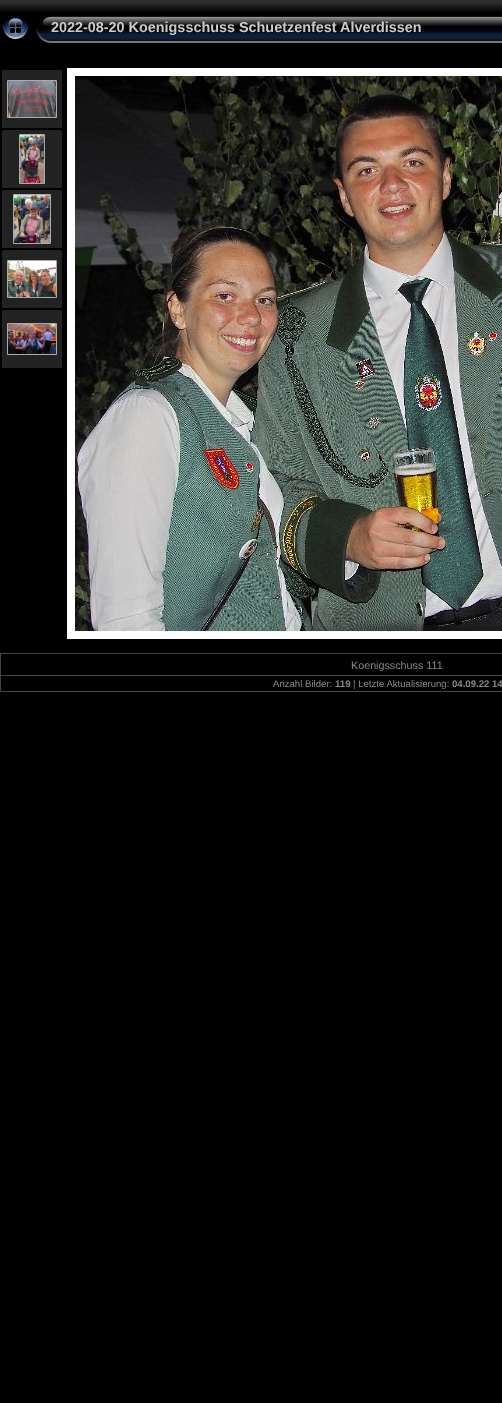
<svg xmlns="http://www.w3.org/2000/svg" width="502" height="1403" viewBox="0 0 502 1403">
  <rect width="100%" height="100%" fill="#000"/>
  <image x="0" y="0" width="502" height="12" href="img/1.png"/>
  <image x="3" y="16" width="25" height="23" href="img/2.png"/>
  <image x="36" y="16" width="15" height="27" href="img/3.png"/>
  <image x="51" y="16" width="451" height="27" href="img/4.png"/>
  <path d="M2 70h60v58H2z" fill="#222"/>
  <path d="M7.5 80.5h49v37H7.5z" fill="none" stroke="#aaa"/>
  <image x="8" y="81" width="48" height="36" href="img/5.png"/>
  <path d="M2 130h60v58H2z" fill="#222"/>
  <path d="M19.5 134.5h25v49H19.5z" fill="none" stroke="#aaa"/>
  <image x="20" y="135" width="24" height="48" href="img/6.png"/>
  <path d="M2 190h60v58H2z" fill="#222"/>
  <path d="M13.5 194.5h37v49H13.5z" fill="none" stroke="#aaa"/>
  <image x="14" y="195" width="36" height="48" href="img/7.png"/>
  <path d="M2 250h60v58H2z" fill="#222"/>
  <path d="M7.5 260.5h49v37H7.5z" fill="none" stroke="#aaa"/>
  <image x="8" y="261" width="48" height="36" href="img/8.png"/>
  <path d="M2 310h60v58H2z" fill="#222"/>
  <path d="M7.5 323.5h49v31H7.5z" fill="none" stroke="#aaa"/>
  <image x="8" y="324" width="48" height="30" href="img/9.png"/>
  <path d="M71 72h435v563H71z" fill="none" stroke="#fff" stroke-width="8"/>
  <image x="75" y="76" width="427" height="555" href="img/10.png"/>
  <path d="M0 653h502v1H0z" fill="#444"/>
  <path d="M0 691h502v1H0z" fill="#444"/>
  <path d="M0 653h1v39H0z" fill="#444"/>
  <path d="M0 675h502v1H0z" fill="#444"/>
  <text x="51" y="32" font-family="Liberation Sans" font-size="14.4" font-weight="bold" fill="#ccc">2022-08-20 Koenigsschuss Schuetzenfest Alverdissen</text>
  <text x="351" y="669" font-family="Liberation Sans" font-size="10.75" fill="#888">Koenigsschuss 111</text>
  <text x="273" y="687" font-family="Liberation Sans" font-size="9.6" fill="#888">Anzahl Bilder:</text>
  <text x="335" y="687" font-family="Liberation Sans" font-size="9.6" font-weight="bold" fill="#888">119</text>
  <text x="353" y="687" font-family="Liberation Sans" font-size="9.6" fill="#888">| Letzte Aktualisierung:</text>
  <text x="452" y="687" font-family="Liberation Sans" font-size="9.6" font-weight="bold" fill="#888">04.09.22 14</text>
</svg>
